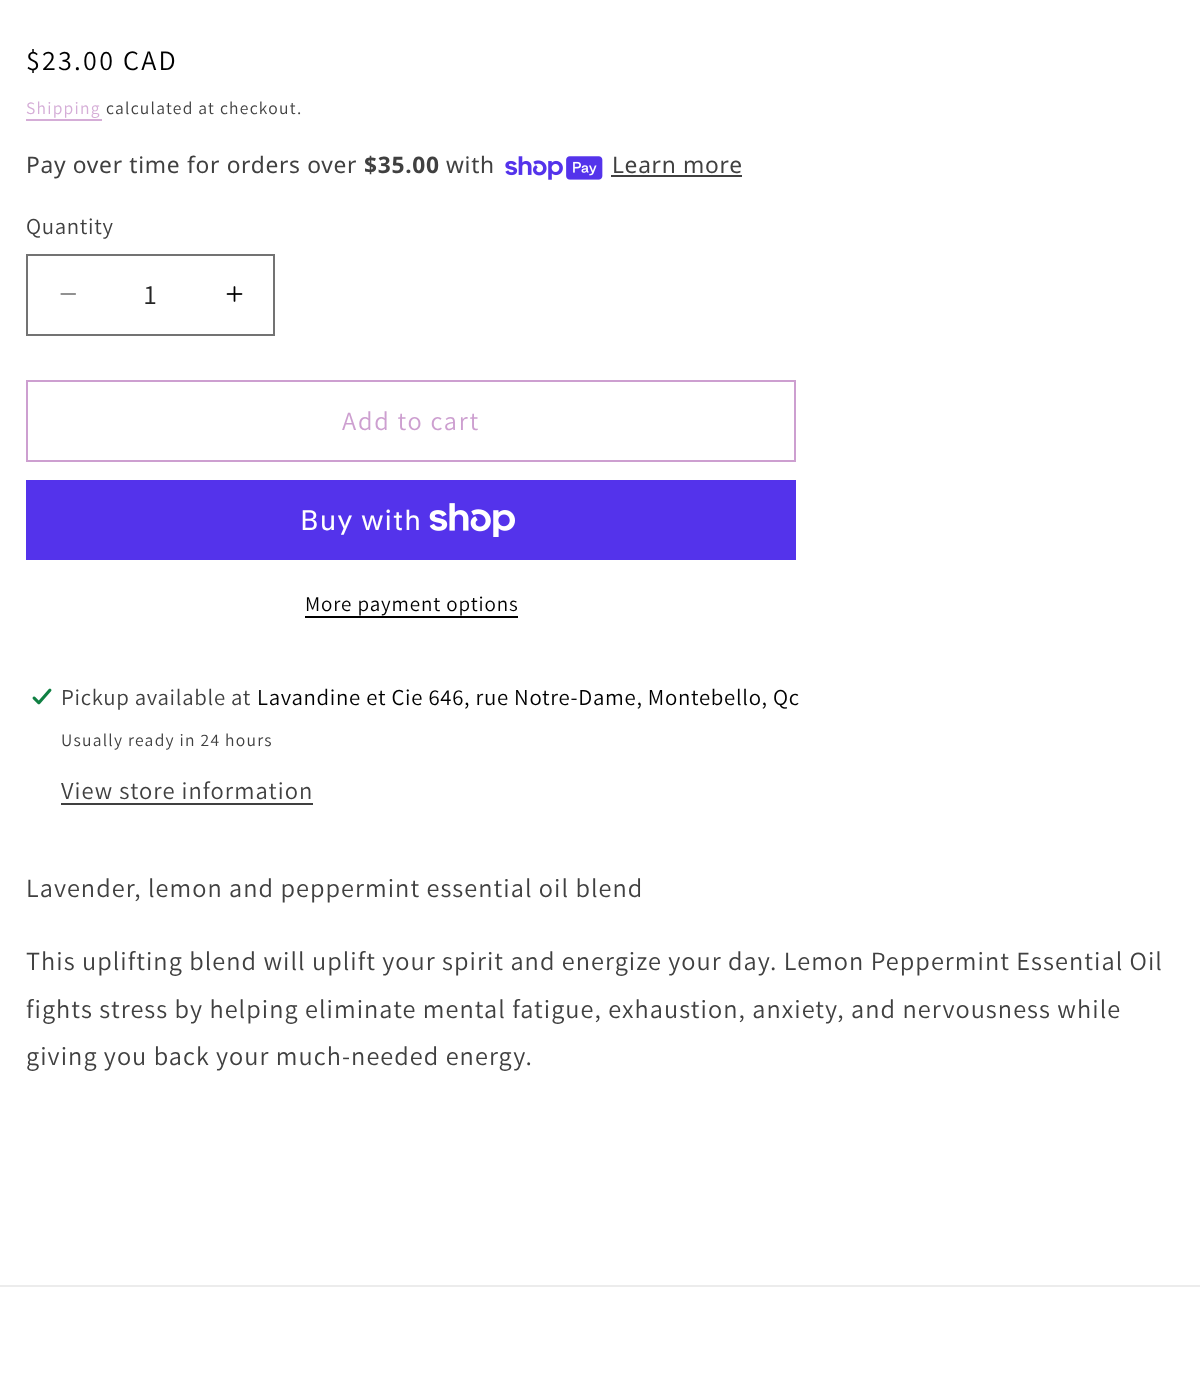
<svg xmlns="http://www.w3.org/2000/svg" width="1200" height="1385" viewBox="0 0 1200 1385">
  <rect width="100%" height="100%" fill="#fff"/>
  <path d="M26 119h76v2H26z" fill="#d5add7"/>
  <image x="505" y="156" width="98" height="24" href="img/1.png"/>
  <path d="M611 175h131v2H611z" fill="#404040"/>
  <image x="60" y="293" width="16" height="2" href="img/2.png"/>
  <image x="226" y="286" width="17" height="16" href="img/3.png"/>
  <path d="M27 255h247v80H27z" fill="none" stroke="#737373" stroke-width="2"/>
  <path d="M27 381h768v80H27z" fill="none" stroke="#cd9fd0" stroke-width="2"/>
  <path d="M26 480h770v80H26z" fill="#5433eb"/>
  <image x="429" y="503" width="86" height="34" href="img/4.png"/>
  <path d="M305 616h213v2H305z" fill="#000"/>
  <image x="32" y="688" width="20" height="17" href="img/5.png"/>
  <path d="M61 803h252v2H61z" fill="#404040"/>
  <path d="M0 1285h1200v2H0z" fill="#ececec"/>
  <text x="26" y="70" font-family="Assistant" font-size="28" letter-spacing="2.25" fill="#000">$23.00 CAD</text>
  <text x="26" y="114" font-family="Assistant" font-size="17.5" letter-spacing="1.25" fill="#d5add7">Shipping</text>
  <text x="106" y="114" font-family="Assistant" font-size="17.5" letter-spacing="1.25" fill="#404040">calculated at checkout.</text>
  <text x="26" y="173" font-family="Noto Sans" font-size="22.75" letter-spacing="0.7" fill="#404040">Pay over time for orders over</text>
  <text x="364" y="173" font-family="Noto Sans" font-size="22.75" font-weight="bold" letter-spacing="0.7" fill="#404040">$35.00</text>
  <g font-family="Noto Sans" font-size="22.75" letter-spacing="0.7" fill="#404040">
    <text x="446" y="173">with</text>
    <text x="612" y="173">Learn more</text>
  </g>
  <text x="26" y="234" font-family="Assistant" font-size="22.75" letter-spacing="0.7" fill="#404040">Quantity</text>
  <text x="144" y="304" font-family="Assistant" font-size="28" fill="#262626">1</text>
  <text x="342" y="430" font-family="Assistant" font-size="26.25" letter-spacing="1.75" fill="#cd9fd0">Add to cart</text>
  <text x="300" y="530" font-family="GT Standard" font-size="28" letter-spacing="1.05" fill="#fff">Buy with</text>
  <text x="305" y="611" font-family="Assistant" font-size="21" letter-spacing="0.9" fill="#000">More payment options</text>
  <text x="61" y="705" font-family="Assistant" font-size="22.75" letter-spacing="0.7" fill="#404040">Pickup available at</text>
  <text x="257" y="705" font-family="Assistant" font-size="22.75" letter-spacing="0.7" fill="#000">Lavandine et Cie 646, rue Notre-Dame, Montebello, Qc</text>
  <text x="61" y="746" font-family="Assistant" font-size="17.5" letter-spacing="1.25" fill="#404040">Usually ready in 24 hours</text>
  <text x="61" y="799" font-family="Assistant" font-size="24.5" letter-spacing="1.05" fill="#404040">View store information</text>
  <g font-family="Assistant" font-size="26.25" letter-spacing="1.05" fill="#404040">
    <text x="26" y="897">Lavender, lemon and peppermint essential oil blend</text>
    <text x="26" y="970">This uplifting blend will uplift your spirit and energize your day. Lemon Peppermint Essential Oil</text>
    <text x="26" y="1018">fights stress by helping eliminate mental fatigue, exhaustion, anxiety, and nervousness while</text>
    <text x="26" y="1065">giving you back your much-needed energy.</text>
  </g>
</svg>
